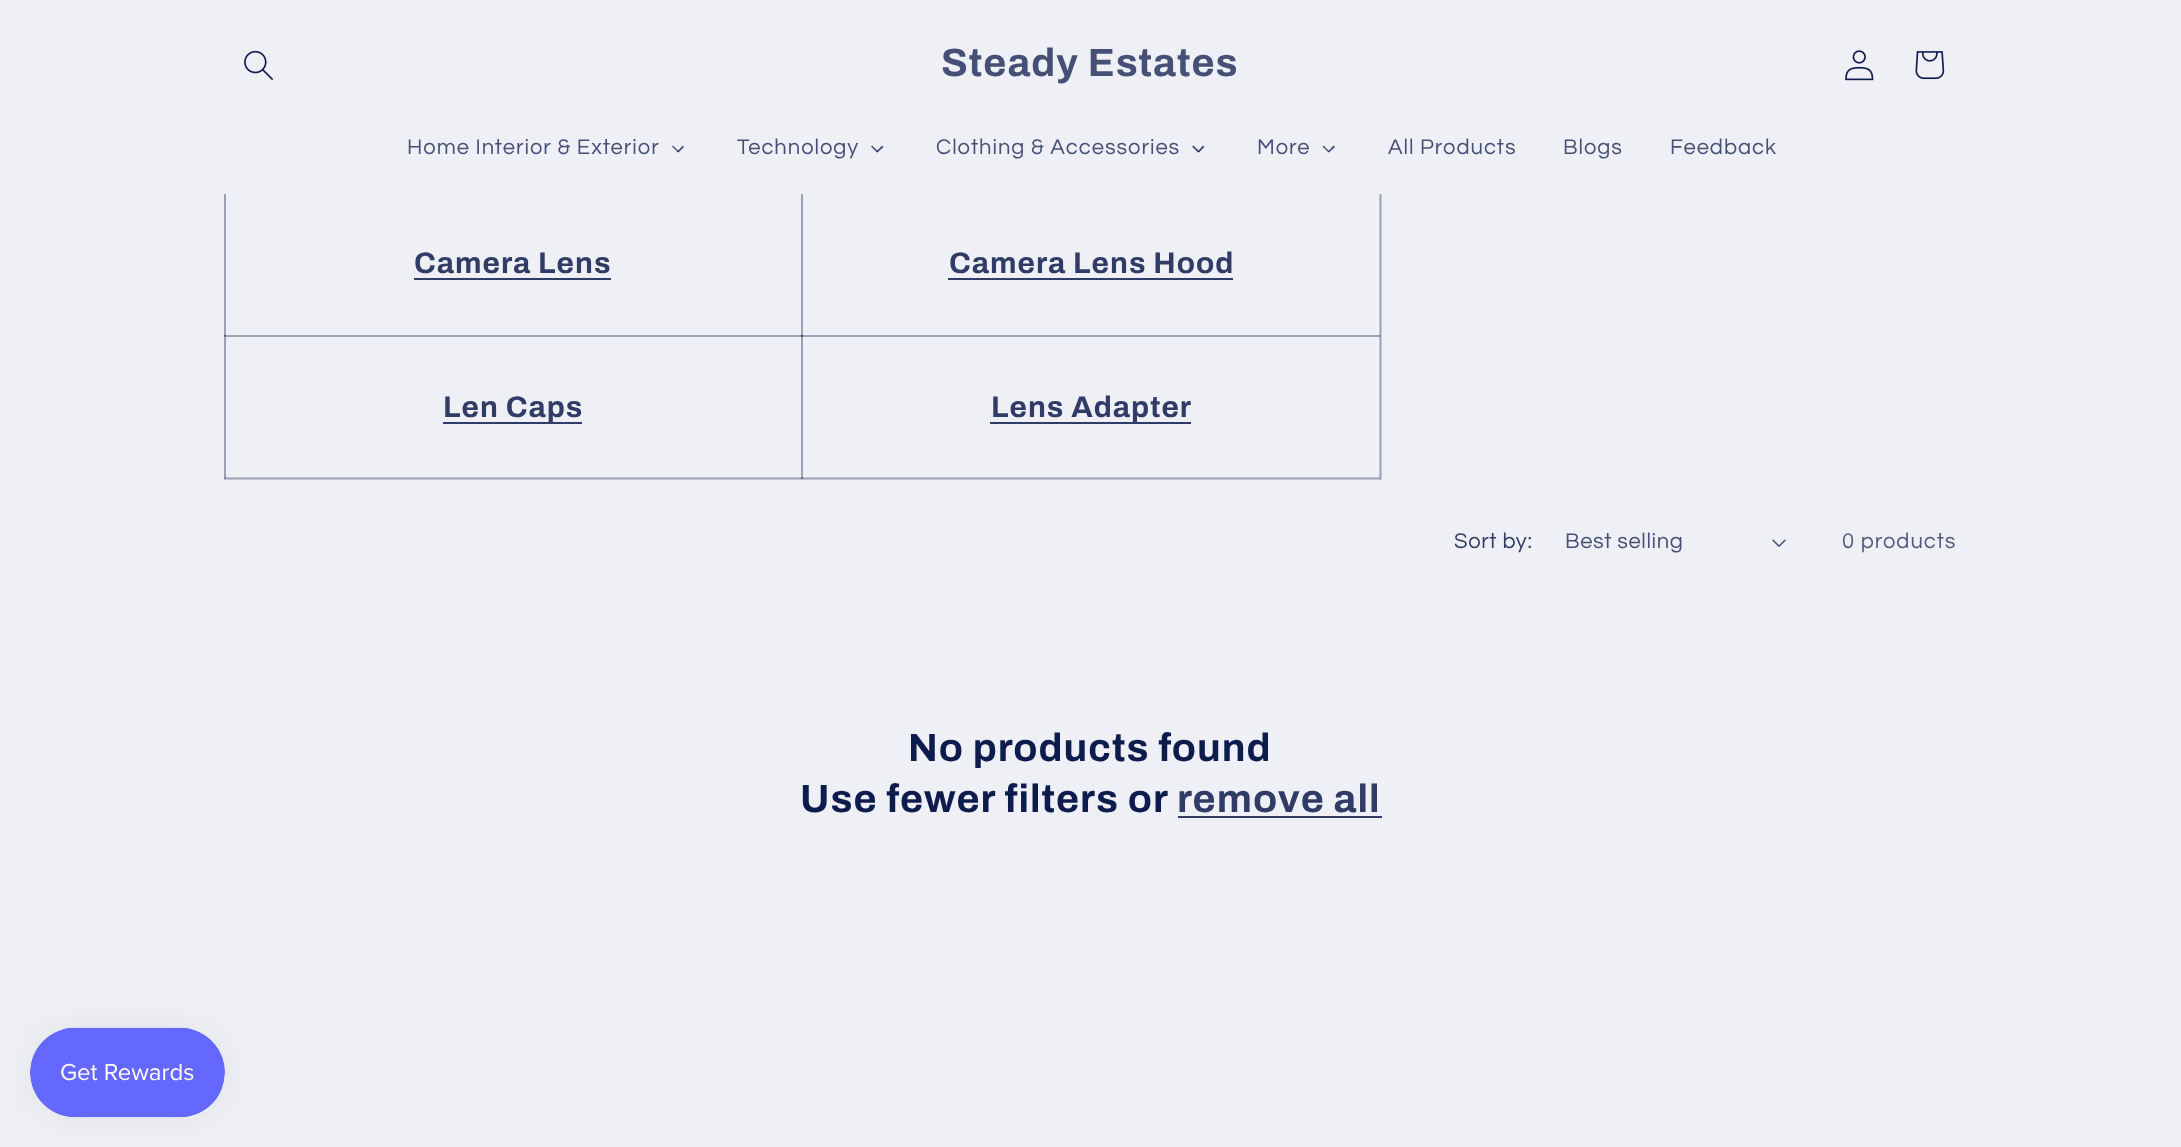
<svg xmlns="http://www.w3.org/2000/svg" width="2181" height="1147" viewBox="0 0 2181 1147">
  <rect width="100%" height="100%" fill="#eff0f5"/>
  <path d="M225 49h1156v430H225z" fill="none" stroke="#c2c5d3" stroke-width="2"/>
  <path d="M801 335h579v2H801z" fill="#c2c5d3"/>
  <path d="M1379 335h2v144H1379z" fill="#0e1b4d33"/>
  <path d="M1379 192h2v144H1379z" fill="#0e1b4d33"/>
  <path d="M801 477h579v2H801z" fill="#0e1b4d33"/>
  <path d="M801 335h2v144H801z" fill="#0e1b4d33"/>
  <path d="M224 335h579v2H224z" fill="#0e1b4d33"/>
  <path d="M801 335h2v144H801z" fill="#0e1b4d33"/>
  <path d="M801 335h579v2H801z" fill="#0e1b4d33"/>
  <path d="M801 192h2v144H801z" fill="#0e1b4d33"/>
  <path d="M801 192h2v144H801z" fill="#0e1b4d33"/>
  <path d="M224 477h579v2H224z" fill="#0e1b4d33"/>
  <path d="M224 335h2v144H224z" fill="#0e1b4d33"/>
  <path d="M224 335h579v2H224z" fill="#0e1b4d33"/>
  <path d="M224 192h2v144H224z" fill="#0e1b4d33"/>
  <path d="M224 48h1158v146H224z" fill="#eff0f5"/>
  <image x="244" y="50" width="29" height="30" href="img/1.png"/>
  <image x="1845" y="50" width="29" height="31" href="img/2.png"/>
  <image x="1915" y="51" width="30" height="29" href="img/3.png"/>
  <path d="M683 145.5L684 147L678.5 152.5L677 151.5Z" fill="#465077"/>
  <path d="M673 145.5L679 151.5L678 152.5L672 146.5Z" fill="#0e1b4dbf"/>
  <path d="M882 145.5L883.5 147L877.5 152.5L876.5 151.5Z" fill="#465077"/>
  <path d="M872 145.5L878.5 151.5L877 152.5L871 146.5Z" fill="#0e1b4dbf"/>
  <path d="M1203 145.5L1204.5 147L1199 152.5L1197.5 151.5Z" fill="#465077"/>
  <path d="M1193.5 145.5L1199.5 151.5L1198 152.5L1192 146.5Z" fill="#0e1b4dbf"/>
  <path d="M1333.5 145.5L1335 147L1329 152.5L1328 151.5Z" fill="#465077"/>
  <path d="M1323.5 145.5L1329.5 151.5L1328.5 152.5L1322.5 146.5Z" fill="#0e1b4dbf"/>
  <path d="M414 278h197v2H414z" fill="#303b66"/>
  <path d="M948 278h285v2H948z" fill="#303b66"/>
  <path d="M443 422h139v2H443z" fill="#303b66"/>
  <path d="M990 422h201v2H990z" fill="#303b66"/>
  <image x="1772" y="539" width="14" height="8" href="img/4.png"/>
  <path d="M1178 816h204v2H1178z" fill="#303b66"/>
  <rect x="30" y="1028" width="195" height="90" rx="45" fill="#0000000d" filter="blur(19px)"/>
  <image x="30" y="1027" width="195" height="91" href="img/5.png"/>
  <text x="941" y="76" font-family="Archivo" font-size="39.5" font-weight="bold" letter-spacing="1" fill="#465077">Steady Estates</text>
  <g font-family="Questrial" font-size="22" letter-spacing="0.95" fill="#465077">
    <text x="407" y="154">Home Interior &amp; Exterior</text>
    <text x="737" y="154">Technology</text>
    <text x="936" y="154">Clothing &amp; Accessories</text>
    <text x="1257" y="154">More</text>
    <text x="1388" y="154">All Products</text>
    <text x="1563" y="154">Blogs</text>
    <text x="1670" y="154">Feedback</text>
  </g>
  <g font-family="Archivo" font-size="29.75" font-weight="bold" letter-spacing="1" fill="#303b66">
    <text x="414" y="273">Camera Lens</text>
    <text x="949" y="273">Camera Lens Hood</text>
    <text x="443" y="417">Len Caps</text>
    <text x="991" y="417">Lens Adapter</text>
  </g>
  <text x="1454" y="548" font-family="Questrial" font-size="22" letter-spacing="0.6" fill="#303b66">Sort by:</text>
  <text x="1565" y="548" font-family="Questrial" font-size="22" letter-spacing="0.6" fill="#465077">Best selling</text>
  <text x="1842" y="548" font-family="Questrial" font-size="22" letter-spacing="0.95" fill="#525b7f">0 products</text>
  <g font-family="Archivo" font-size="39.5" font-weight="bold" letter-spacing="1" fill="#0e1b4d">
    <text x="908" y="761">No products found</text>
    <text x="800" y="812">Use fewer filters or</text>
  </g>
  <text x="1177" y="812" font-family="Archivo" font-size="39.5" font-weight="bold" letter-spacing="1" fill="#303b66">remove all</text>
</svg>
